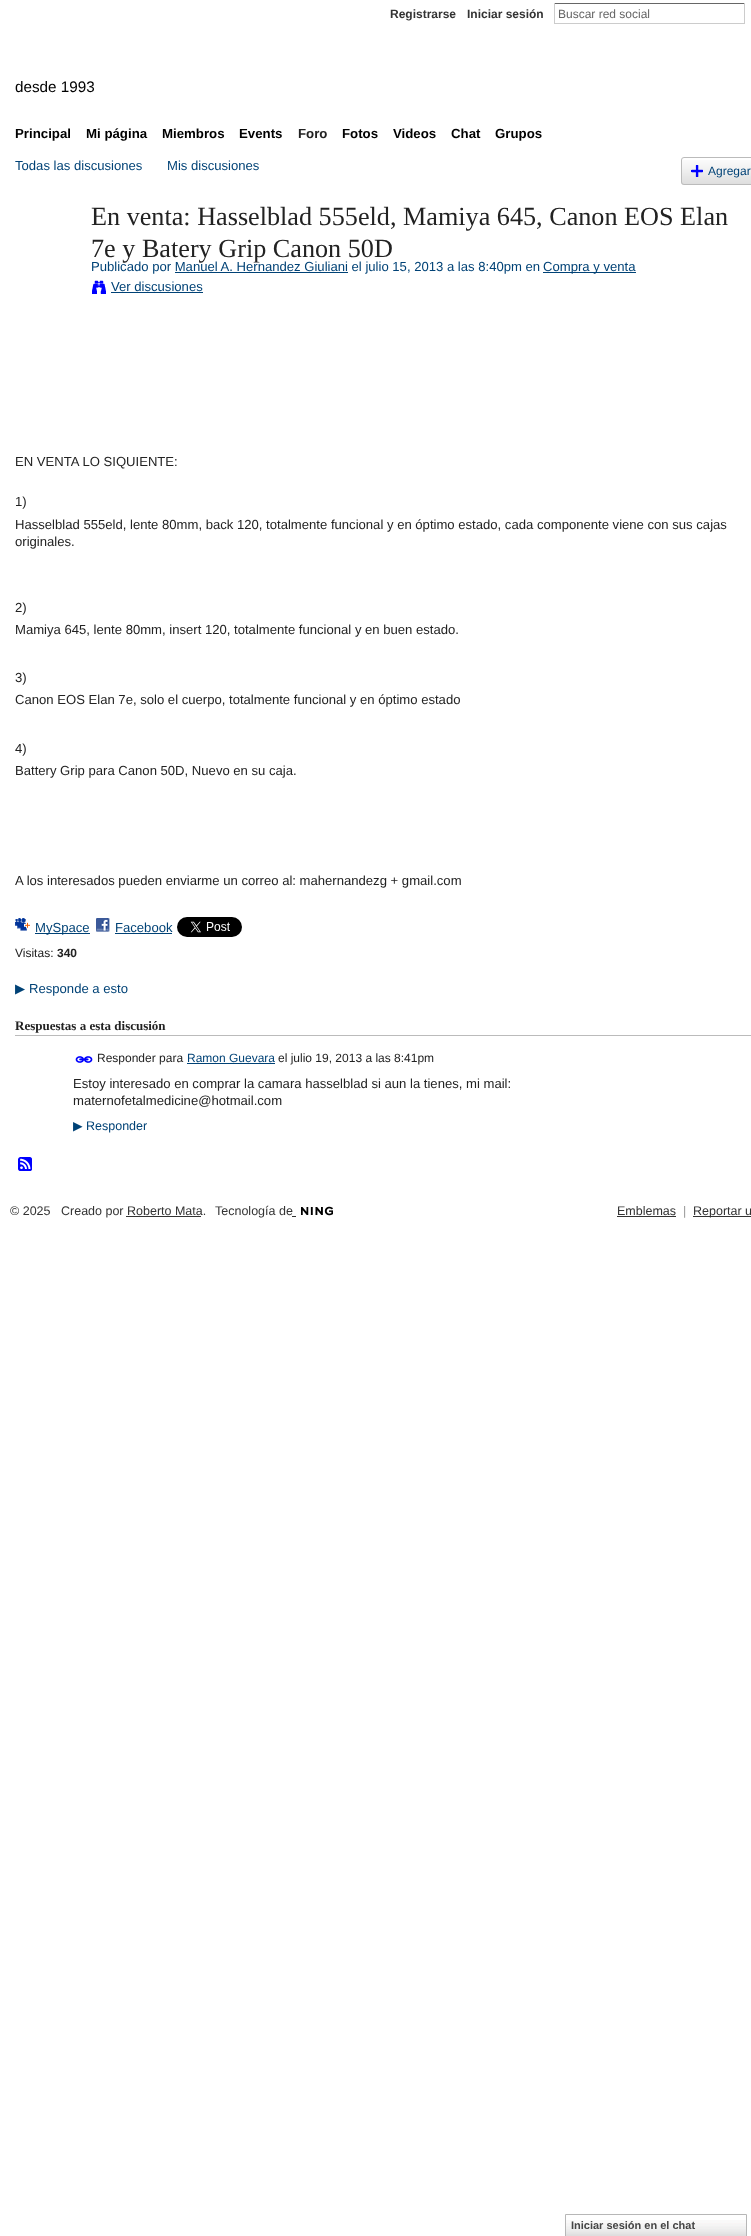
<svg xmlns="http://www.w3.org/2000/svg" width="751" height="2236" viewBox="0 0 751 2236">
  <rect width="100%" height="100%" fill="#fff"/>
  <path d="M554 3h191v1H554z" fill="#666"/>
  <path d="M744 3h1v21H744z" fill="#ccc"/>
  <path d="M554 23h191v1H554z" fill="#ccc"/>
  <path d="M554 3h1v21H554z" fill="#ccc"/>
  <image x="681" y="160" width="70" height="25" href="img/1.png"/>
  <rect x="681.5" y="157.5" width="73" height="27" rx="2.5" fill="none" stroke="#bbb"/>
  <image x="691" y="165" width="12" height="12" href="img/2.png"/>
  <path d="M543 272h93v1H543z" fill="#004276"/>
  <path d="M175 272h173v1H175z" fill="#004276"/>
  <image x="92" y="280" width="14" height="14" href="img/3.png"/>
  <path d="M111 292h92v1H111z" fill="#004276"/>
  <image x="15" y="918" width="15" height="13" href="img/4.png"/>
  <path d="M35 933h55v1H35z" fill="#004276"/>
  <image x="96" y="918" width="14" height="14" href="img/5.png"/>
  <path d="M115 933h57v1H115z" fill="#004276"/>
  <image x="177" y="917" width="65" height="20" href="img/6.png"/>
  <path d="M15 1035h736v1H15z" fill="#bbb"/>
  <image x="75" y="1056" width="18" height="7" href="img/7.png"/>
  <path d="M187 1063h88v1H187z" fill="#004276"/>
  <image x="18" y="1157" width="14" height="14" href="img/8.png"/>
  <image x="301" y="1206" width="32" height="10" href="img/9.png"/>
  <path d="M126 1216h75v1H126z" fill="#333"/>
  <path d="M292 1216h4v1H292z" fill="#333"/>
  <path d="M617 1216h59v1H617z" fill="#333"/>
  <path d="M693 1216h58v1H693z" fill="#333"/>
  <image x="566" y="2220" width="180" height="16" href="img/10.png"/>
  <path d="M565.5 2214.5h181v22H565.5z" fill="none" stroke="#b7b7b7"/>
  <g font-family="Liberation Sans" font-size="12" font-weight="bold" fill="#333">
    <text x="390" y="18">Registrarse</text>
    <text x="467" y="18">Iniciar sesión</text>
  </g>
  <text x="558" y="18" font-family="Liberation Sans" font-size="12" fill="#666">Buscar red social</text>
  <text x="15" y="92" font-family="Liberation Sans" font-size="15.25" fill="#000">desde 1993</text>
  <g font-family="Liberation Sans" font-size="13.25" font-weight="bold" fill="#000">
    <text x="15" y="138">Principal</text>
    <text x="86" y="138">Mi página</text>
    <text x="162" y="138">Miembros</text>
    <text x="239" y="138">Events</text>
  </g>
  <text x="298" y="138" font-family="Liberation Sans" font-size="13.25" font-weight="bold" fill="#222">Foro</text>
  <g font-family="Liberation Sans" font-size="13.25" font-weight="bold" fill="#000">
    <text x="342" y="138">Fotos</text>
    <text x="393" y="138">Videos</text>
    <text x="451" y="138">Chat</text>
    <text x="495" y="138">Grupos</text>
  </g>
  <g font-family="Liberation Sans" font-size="13.1" fill="#004276">
    <text x="15" y="170">Todas las discusiones</text>
    <text x="167" y="170">Mis discusiones</text>
  </g>
  <text x="708" y="175" font-family="Liberation Sans" font-size="12" fill="#004276">Agregar</text>
  <g font-family="Liberation Serif" font-size="26.2" fill="#222">
    <text x="91" y="225">En venta: Hasselblad 555eld, Mamiya 645, Canon EOS Elan</text>
    <text x="91" y="257">7e y Batery Grip Canon 50D</text>
  </g>
  <g font-family="Liberation Sans" font-size="13.1" fill="#004276">
    <text x="91" y="271">Publicado por Manuel A. Hernandez Giuliani el julio 15, 2013 a las 8:40pm en</text>
    <text x="543" y="271">Compra y venta</text>
    <text x="111" y="291">Ver discusiones</text>
  </g>
  <g font-family="Liberation Sans" font-size="13.1" fill="#222">
    <text x="15" y="466">EN VENTA LO SIQUIENTE:</text>
    <text x="15" y="506">1)</text>
    <text x="15" y="529">Hasselblad 555eld, lente 80mm, back 120, totalmente funcional y en óptimo estado, cada componente viene con sus cajas</text>
    <text x="15" y="546">originales.</text>
    <text x="15" y="612">2)</text>
    <text x="15" y="634">Mamiya 645, lente 80mm, insert 120, totalmente funcional y en buen estado.</text>
    <text x="15" y="682">3)</text>
    <text x="15" y="704">Canon EOS Elan 7e, solo el cuerpo, totalmente funcional y en óptimo estado</text>
    <text x="15" y="753">4)</text>
    <text x="15" y="775">Battery Grip para Canon 50D, Nuevo en su caja.</text>
    <text x="15" y="885">A los interesados pueden enviarme un correo al: mahernandezg + gmail.com</text>
  </g>
  <g font-family="Liberation Sans" font-size="13.1" fill="#004276">
    <text x="35" y="932">MySpace</text>
    <text x="115" y="932">Facebook</text>
  </g>
  <text x="15" y="957" font-family="Liberation Sans" font-size="12" fill="#222">Visitas:</text>
  <text x="57" y="957" font-family="Liberation Sans" font-size="12" font-weight="bold" fill="#222">340</text>
  <text x="15" y="993" font-family="DejaVu Sans" font-size="13.1" fill="#004276">▶</text>
  <text x="29" y="993" font-family="Liberation Sans" font-size="13.1" fill="#004276">Responde a esto</text>
  <text x="15" y="1030" font-family="Liberation Serif" font-size="13" font-weight="bold" fill="#222">Respuestas a esta discusión</text>
  <text x="97" y="1062" font-family="Liberation Sans" font-size="12" fill="#222">Responder para</text>
  <text x="187" y="1062" font-family="Liberation Sans" font-size="12" fill="#004276">Ramon Guevara</text>
  <text x="278" y="1062" font-family="Liberation Sans" font-size="12" fill="#222">el julio 19, 2013 a las 8:41pm</text>
  <g font-family="Liberation Sans" font-size="13.1" fill="#222">
    <text x="73" y="1088">Estoy interesado en comprar la camara hasselblad si aun la tienes, mi mail:</text>
    <text x="73" y="1105">maternofetalmedicine@hotmail.com</text>
  </g>
  <text x="73" y="1130" font-family="DejaVu Sans" font-size="12.5" fill="#004276">▶</text>
  <text x="86" y="1130" font-family="Liberation Sans" font-size="12.5" fill="#004276">Responder</text>
  <g font-family="Liberation Sans" font-size="12.5" fill="#333">
    <text x="10" y="1215">© 2025</text>
    <text x="61" y="1215">Creado por Roberto Mata.</text>
    <text x="215" y="1215">Tecnología de</text>
    <text x="617" y="1215">Emblemas</text>
  </g>
  <text x="683" y="1215" font-family="Liberation Sans" font-size="12.5" fill="#999">|</text>
  <text x="693" y="1215" font-family="Liberation Sans" font-size="12.5" fill="#333">Reportar u</text>
  <text x="571" y="2229" font-family="Liberation Sans" font-size="11" font-weight="bold" fill="#454545">Iniciar sesión en el chat</text>
</svg>
